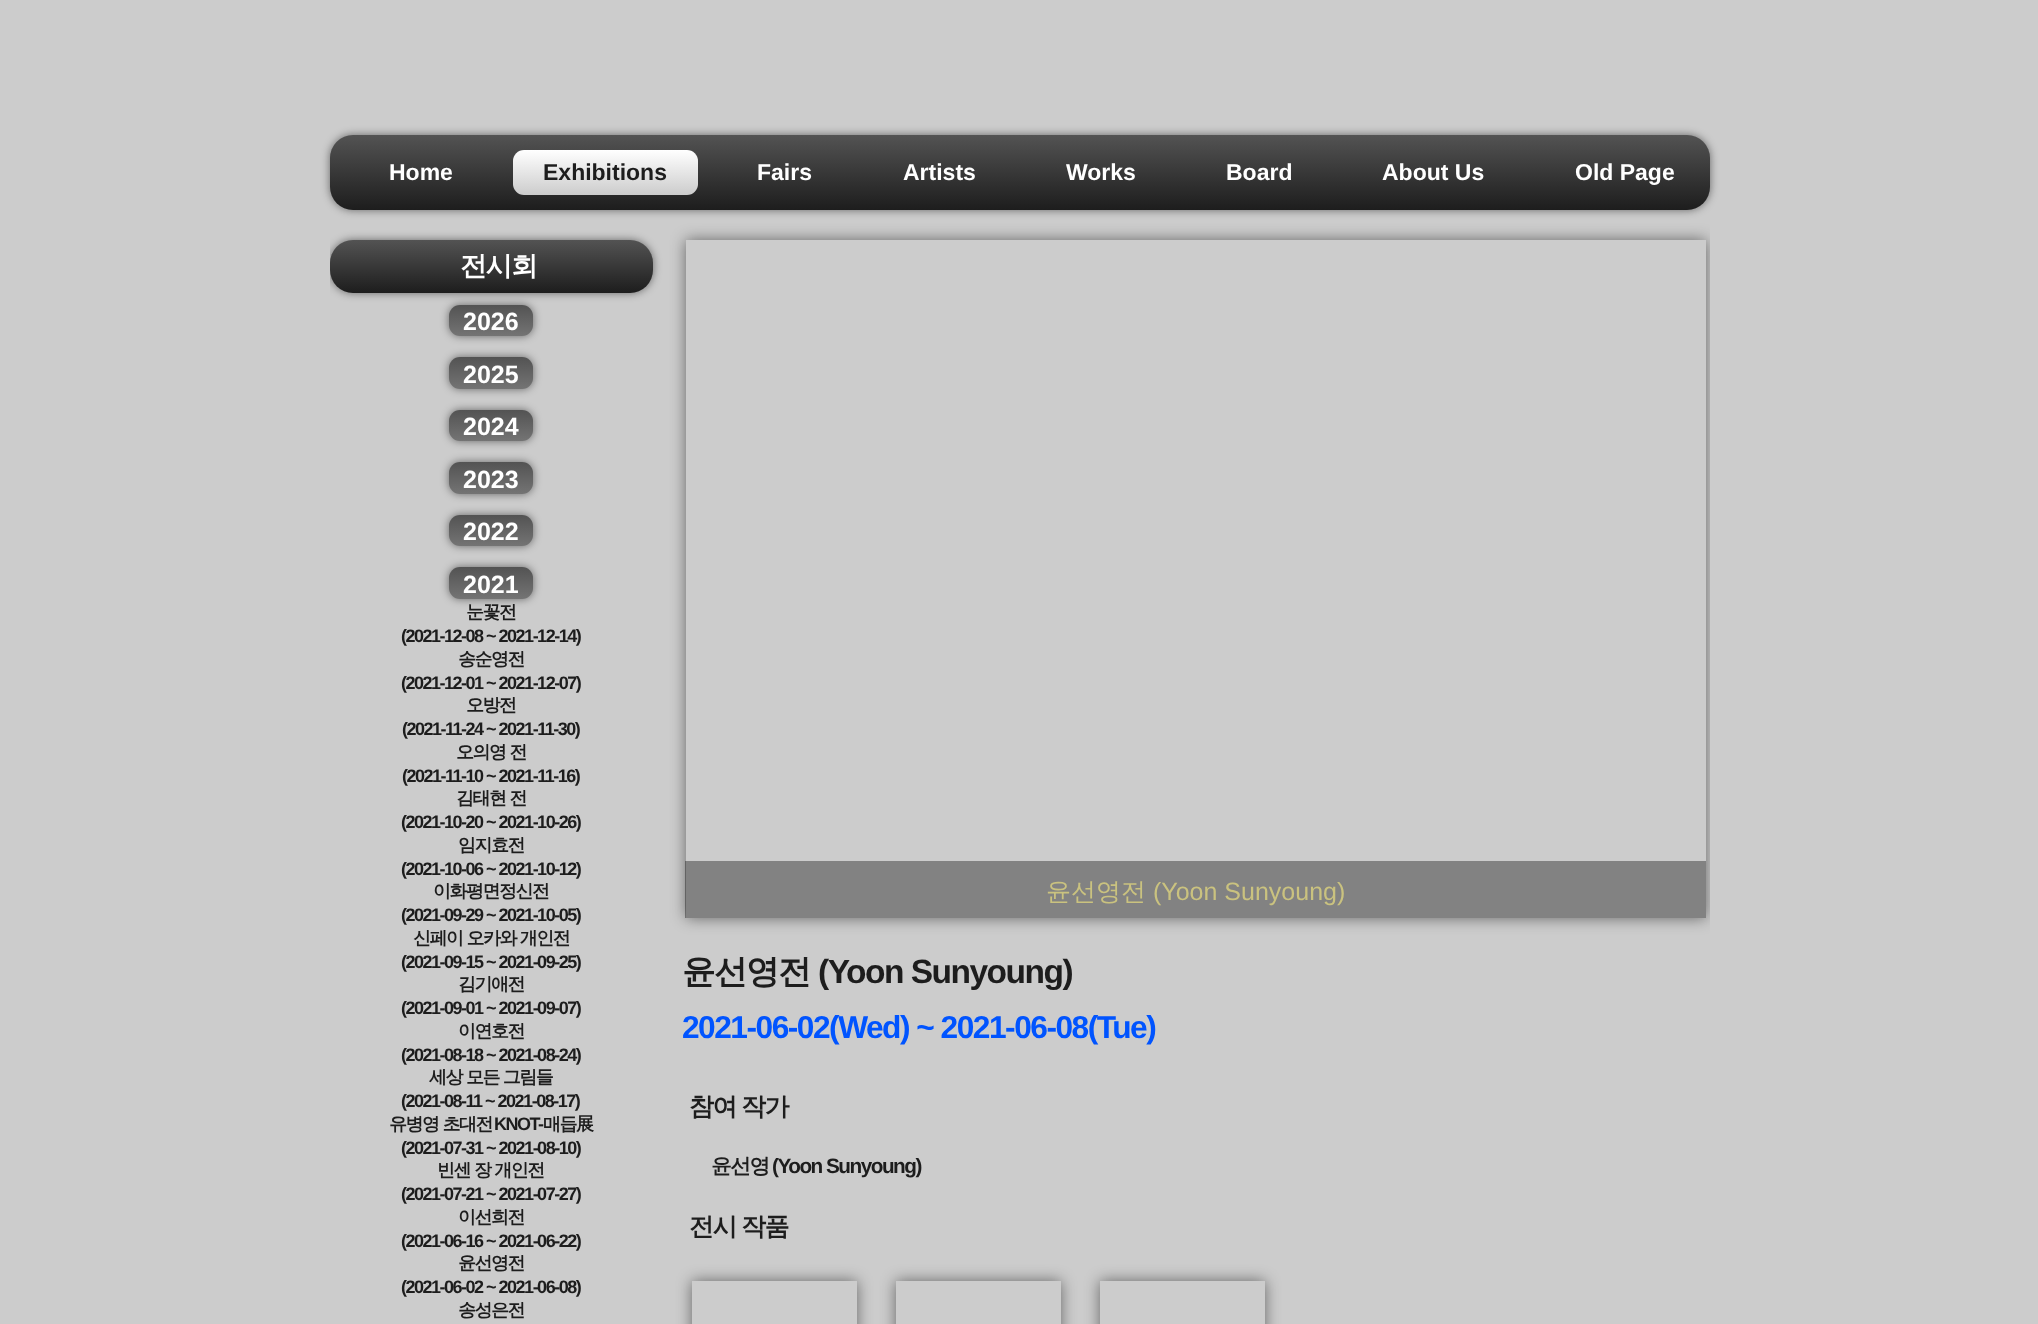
<svg xmlns="http://www.w3.org/2000/svg" width="2038" height="1324" viewBox="0 0 2038 1324">
  <defs>
    <linearGradient id="g1" gradientUnits="userSpaceOnUse" x1="1020" y1="135" x2="1020" y2="210"><stop offset="0" stop-color="#535353"/><stop offset="1" stop-color="#1d1d1d"/></linearGradient>
    <linearGradient id="g2" gradientUnits="userSpaceOnUse" x1="605" y1="150" x2="605" y2="195"><stop offset="0" stop-color="#fff"/><stop offset="1" stop-color="#ccc"/></linearGradient>
    <clipPath id="clip1"><path d="M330 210h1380v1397H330z"/></clipPath>
    <linearGradient id="g3" gradientUnits="userSpaceOnUse" x1="491" y1="240" x2="491" y2="293"><stop offset="0" stop-color="#535353"/><stop offset="1" stop-color="#1d1d1d"/></linearGradient>
    <linearGradient id="g4" gradientUnits="userSpaceOnUse" x1="491" y1="305" x2="491" y2="336"><stop offset="0" stop-color="#535353"/><stop offset="1" stop-color="#747474"/></linearGradient>
    <linearGradient id="g5" gradientUnits="userSpaceOnUse" x1="491" y1="357" x2="491" y2="389"><stop offset="0" stop-color="#535353"/><stop offset="1" stop-color="#747474"/></linearGradient>
    <linearGradient id="g6" gradientUnits="userSpaceOnUse" x1="491" y1="410" x2="491" y2="441"><stop offset="0" stop-color="#535353"/><stop offset="1" stop-color="#747474"/></linearGradient>
    <linearGradient id="g7" gradientUnits="userSpaceOnUse" x1="491" y1="462" x2="491" y2="494"><stop offset="0" stop-color="#535353"/><stop offset="1" stop-color="#747474"/></linearGradient>
    <linearGradient id="g8" gradientUnits="userSpaceOnUse" x1="491" y1="515" x2="491" y2="546"><stop offset="0" stop-color="#535353"/><stop offset="1" stop-color="#747474"/></linearGradient>
    <linearGradient id="g9" gradientUnits="userSpaceOnUse" x1="491" y1="567" x2="491" y2="599"><stop offset="0" stop-color="#535353"/><stop offset="1" stop-color="#747474"/></linearGradient>
    <clipPath id="clip2"><path d="M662 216H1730V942H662ZM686 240H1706V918H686Z" clip-rule="evenodd"/></clipPath>
    <clipPath id="clip3"><path d="M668 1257H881V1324H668ZM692 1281H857V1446H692Z" clip-rule="evenodd"/></clipPath>
    <clipPath id="clip4"><path d="M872 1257H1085V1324H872ZM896 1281H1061V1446H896Z" clip-rule="evenodd"/></clipPath>
    <clipPath id="clip5"><path d="M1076 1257H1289V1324H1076ZM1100 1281H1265V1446H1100Z" clip-rule="evenodd"/></clipPath>
  </defs>
  <rect width="100%" height="100%" fill="#ccc"/>
  <rect x="330" y="135" width="1380" height="75" rx="23" fill="#00000080" filter="blur(4px)"/>
  <rect x="330" y="135" width="1380" height="75" rx="23" fill="url(#g1)"/>
  <rect x="513" y="150" width="185" height="45" rx="11" fill="url(#g2)"/>
  <g clip-path="url(#clip1)">
    <rect x="330" y="240" width="323" height="53" rx="23" fill="#00000080" filter="blur(4px)"/>
  </g>
  <rect x="330" y="240" width="323" height="53" rx="23" fill="url(#g3)"/>
  <rect x="449" y="305" width="84" height="31" rx="11" fill="#00000080" filter="blur(4px)"/>
  <rect x="449" y="305" width="84" height="31" rx="11" fill="url(#g4)"/>
  <rect x="449" y="357" width="84" height="32" rx="11" fill="#00000080" filter="blur(4px)"/>
  <rect x="449" y="357" width="84" height="32" rx="11" fill="url(#g5)"/>
  <rect x="449" y="410" width="84" height="31" rx="11" fill="#00000080" filter="blur(4px)"/>
  <rect x="449" y="410" width="84" height="31" rx="11" fill="url(#g6)"/>
  <rect x="449" y="462" width="84" height="32" rx="11" fill="#00000080" filter="blur(4px)"/>
  <rect x="449" y="462" width="84" height="32" rx="11" fill="url(#g7)"/>
  <rect x="449" y="515" width="84" height="31" rx="11" fill="#00000080" filter="blur(4px)"/>
  <rect x="449" y="515" width="84" height="31" rx="11" fill="url(#g8)"/>
  <rect x="449" y="567" width="84" height="32" rx="11" fill="#00000080" filter="blur(4px)"/>
  <rect x="449" y="567" width="84" height="32" rx="11" fill="url(#g9)"/>
  <g clip-path="url(#clip1)">
    <g clip-path="url(#clip2)">
      <path d="M686 240h1020v678H686z" fill="#00000080" filter="blur(7.5px)"/>
    </g>
  </g>
  <path d="M685 861h1021v57H685z" fill="#0000005c"/>
  <g clip-path="url(#clip3)">
    <path d="M692 1281h165v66H692z" fill="#00000080" filter="blur(7.5px)"/>
  </g>
  <g clip-path="url(#clip4)">
    <path d="M896 1281h165v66H896z" fill="#00000080" filter="blur(7.5px)"/>
  </g>
  <g clip-path="url(#clip5)">
    <path d="M1100 1281h165v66H1100z" fill="#00000080" filter="blur(7.5px)"/>
  </g>
  <text x="389" y="180" font-family="Liberation Sans" font-size="23" font-weight="bold" fill="#fff">Home</text>
  <text x="543" y="180" font-family="Liberation Sans" font-size="23" font-weight="bold" fill="#1d1d1d">Exhibitions</text>
  <g font-family="Liberation Sans" font-size="23" font-weight="bold" fill="#fff">
    <text x="757" y="180">Fairs</text>
    <text x="903" y="180">Artists</text>
    <text x="1066" y="180">Works</text>
    <text x="1226" y="180">Board</text>
    <text x="1382" y="180">About Us</text>
    <text x="1575" y="180">Old Page</text>
  </g>
  <text x="460" y="275" font-family="WenQuanYi Zen Hei" font-size="27" font-weight="bold" letter-spacing="-1.5" fill="#fff">전시회</text>
  <g font-family="Liberation Sans" font-size="25" font-weight="bold" fill="#fff">
    <text x="463" y="330">2026</text>
    <text x="463" y="383">2025</text>
    <text x="463" y="435">2024</text>
    <text x="463" y="488">2023</text>
    <text x="463" y="540">2022</text>
    <text x="463" y="593">2021</text>
  </g>
  <text x="466" y="618" font-family="WenQuanYi Zen Hei" font-size="18" font-weight="bold" letter-spacing="-1.5" fill="#1d1d1d">눈꽃전</text>
  <text x="401" y="642" font-family="Liberation Sans" font-size="18" font-weight="bold" letter-spacing="-1.5" fill="#1d1d1d">(2021-12-08 ~ 2021-12-14)</text>
  <text x="458" y="665" font-family="WenQuanYi Zen Hei" font-size="18" font-weight="bold" letter-spacing="-1.5" fill="#1d1d1d">송순영전</text>
  <text x="401" y="689" font-family="Liberation Sans" font-size="18" font-weight="bold" letter-spacing="-1.5" fill="#1d1d1d">(2021-12-01 ~ 2021-12-07)</text>
  <text x="466" y="711" font-family="WenQuanYi Zen Hei" font-size="18" font-weight="bold" letter-spacing="-1.5" fill="#1d1d1d">오방전</text>
  <text x="402" y="735" font-family="Liberation Sans" font-size="18" font-weight="bold" letter-spacing="-1.5" fill="#1d1d1d">(2021-11-24 ~ 2021-11-30)</text>
  <text x="456" y="758" font-family="WenQuanYi Zen Hei" font-size="18" font-weight="bold" letter-spacing="-1.5" fill="#1d1d1d">오의영 전</text>
  <text x="402" y="782" font-family="Liberation Sans" font-size="18" font-weight="bold" letter-spacing="-1.5" fill="#1d1d1d">(2021-11-10 ~ 2021-11-16)</text>
  <text x="456" y="804" font-family="WenQuanYi Zen Hei" font-size="18" font-weight="bold" letter-spacing="-1.5" fill="#1d1d1d">김태현 전</text>
  <text x="401" y="828" font-family="Liberation Sans" font-size="18" font-weight="bold" letter-spacing="-1.5" fill="#1d1d1d">(2021-10-20 ~ 2021-10-26)</text>
  <text x="458" y="851" font-family="WenQuanYi Zen Hei" font-size="18" font-weight="bold" letter-spacing="-1.5" fill="#1d1d1d">임지효전</text>
  <text x="401" y="875" font-family="Liberation Sans" font-size="18" font-weight="bold" letter-spacing="-1.5" fill="#1d1d1d">(2021-10-06 ~ 2021-10-12)</text>
  <text x="433" y="897" font-family="WenQuanYi Zen Hei" font-size="18" font-weight="bold" letter-spacing="-1.5" fill="#1d1d1d">이화평면정신전</text>
  <text x="401" y="921" font-family="Liberation Sans" font-size="18" font-weight="bold" letter-spacing="-1.5" fill="#1d1d1d">(2021-09-29 ~ 2021-10-05)</text>
  <text x="413" y="944" font-family="WenQuanYi Zen Hei" font-size="18" font-weight="bold" letter-spacing="-1.5" fill="#1d1d1d">신페이 오카와 개인전</text>
  <text x="401" y="968" font-family="Liberation Sans" font-size="18" font-weight="bold" letter-spacing="-1.5" fill="#1d1d1d">(2021-09-15 ~ 2021-09-25)</text>
  <text x="458" y="990" font-family="WenQuanYi Zen Hei" font-size="18" font-weight="bold" letter-spacing="-1.5" fill="#1d1d1d">김기애전</text>
  <text x="401" y="1014" font-family="Liberation Sans" font-size="18" font-weight="bold" letter-spacing="-1.5" fill="#1d1d1d">(2021-09-01 ~ 2021-09-07)</text>
  <text x="458" y="1037" font-family="WenQuanYi Zen Hei" font-size="18" font-weight="bold" letter-spacing="-1.5" fill="#1d1d1d">이연호전</text>
  <text x="401" y="1061" font-family="Liberation Sans" font-size="18" font-weight="bold" letter-spacing="-1.5" fill="#1d1d1d">(2021-08-18 ~ 2021-08-24)</text>
  <text x="429" y="1083" font-family="WenQuanYi Zen Hei" font-size="18" font-weight="bold" letter-spacing="-1.5" fill="#1d1d1d">세상 모든 그림들</text>
  <text x="401" y="1107" font-family="Liberation Sans" font-size="18" font-weight="bold" letter-spacing="-1.5" fill="#1d1d1d">(2021-08-11 ~ 2021-08-17)</text>
  <text x="389" y="1130" font-family="WenQuanYi Zen Hei" font-size="18" font-weight="bold" letter-spacing="-1.5" fill="#1d1d1d">유병영 초대전</text>
  <text x="494" y="1130" font-family="Liberation Sans" font-size="18" font-weight="bold" letter-spacing="-1.5" fill="#1d1d1d">KNOT-</text>
  <text x="543" y="1130" font-family="WenQuanYi Zen Hei" font-size="18" font-weight="bold" letter-spacing="-1.5" fill="#1d1d1d">매듭展</text>
  <text x="401" y="1154" font-family="Liberation Sans" font-size="18" font-weight="bold" letter-spacing="-1.5" fill="#1d1d1d">(2021-07-31 ~ 2021-08-10)</text>
  <text x="437" y="1176" font-family="WenQuanYi Zen Hei" font-size="18" font-weight="bold" letter-spacing="-1.5" fill="#1d1d1d">빈센 장 개인전</text>
  <text x="401" y="1200" font-family="Liberation Sans" font-size="18" font-weight="bold" letter-spacing="-1.5" fill="#1d1d1d">(2021-07-21 ~ 2021-07-27)</text>
  <text x="458" y="1223" font-family="WenQuanYi Zen Hei" font-size="18" font-weight="bold" letter-spacing="-1.5" fill="#1d1d1d">이선희전</text>
  <text x="401" y="1247" font-family="Liberation Sans" font-size="18" font-weight="bold" letter-spacing="-1.5" fill="#1d1d1d">(2021-06-16 ~ 2021-06-22)</text>
  <text x="458" y="1269" font-family="WenQuanYi Zen Hei" font-size="18" font-weight="bold" letter-spacing="-1.5" fill="#1d1d1d">윤선영전</text>
  <text x="401" y="1293" font-family="Liberation Sans" font-size="18" font-weight="bold" letter-spacing="-1.5" fill="#1d1d1d">(2021-06-02 ~ 2021-06-08)</text>
  <text x="458" y="1316" font-family="WenQuanYi Zen Hei" font-size="18" font-weight="bold" letter-spacing="-1.5" fill="#1d1d1d">송성은전</text>
  <text x="1046" y="900" font-family="WenQuanYi Zen Hei" font-size="25" font-weight="500" fill="#cac27f">윤선영전</text>
  <text x="1153" y="900" font-family="Liberation Sans" font-size="25" fill="#cac27f">(Yoon Sunyoung)</text>
  <text x="682" y="983" font-family="WenQuanYi Zen Hei" font-size="33.5" font-weight="bold" letter-spacing="-1.5" fill="#1d1d1d">윤선영전</text>
  <text x="818" y="983" font-family="Liberation Sans" font-size="33.5" font-weight="bold" letter-spacing="-1.5" fill="#1d1d1d">(Yoon Sunyoung)</text>
  <text x="682" y="1038" font-family="Liberation Sans" font-size="31.7" font-weight="bold" letter-spacing="-1.5" fill="#0054ff">2021-06-02(Wed) ~ 2021-06-08(Tue)</text>
  <text x="689" y="1115" word-spacing="-1" font-family="WenQuanYi Zen Hei" font-size="25" font-weight="bold" letter-spacing="-1.5" fill="#1d1d1d">참여 작가</text>
  <text x="711" y="1173" font-family="WenQuanYi Zen Hei" font-size="20.75" font-weight="bold" letter-spacing="-1.5" fill="#1d1d1d">윤선영</text>
  <text x="772" y="1173" font-family="Liberation Sans" font-size="20.75" font-weight="bold" letter-spacing="-1.5" fill="#1d1d1d">(Yoon Sunyoung)</text>
  <text x="689" y="1235" word-spacing="-1" font-family="WenQuanYi Zen Hei" font-size="25" font-weight="bold" letter-spacing="-1.5" fill="#1d1d1d">전시 작품</text>
</svg>
